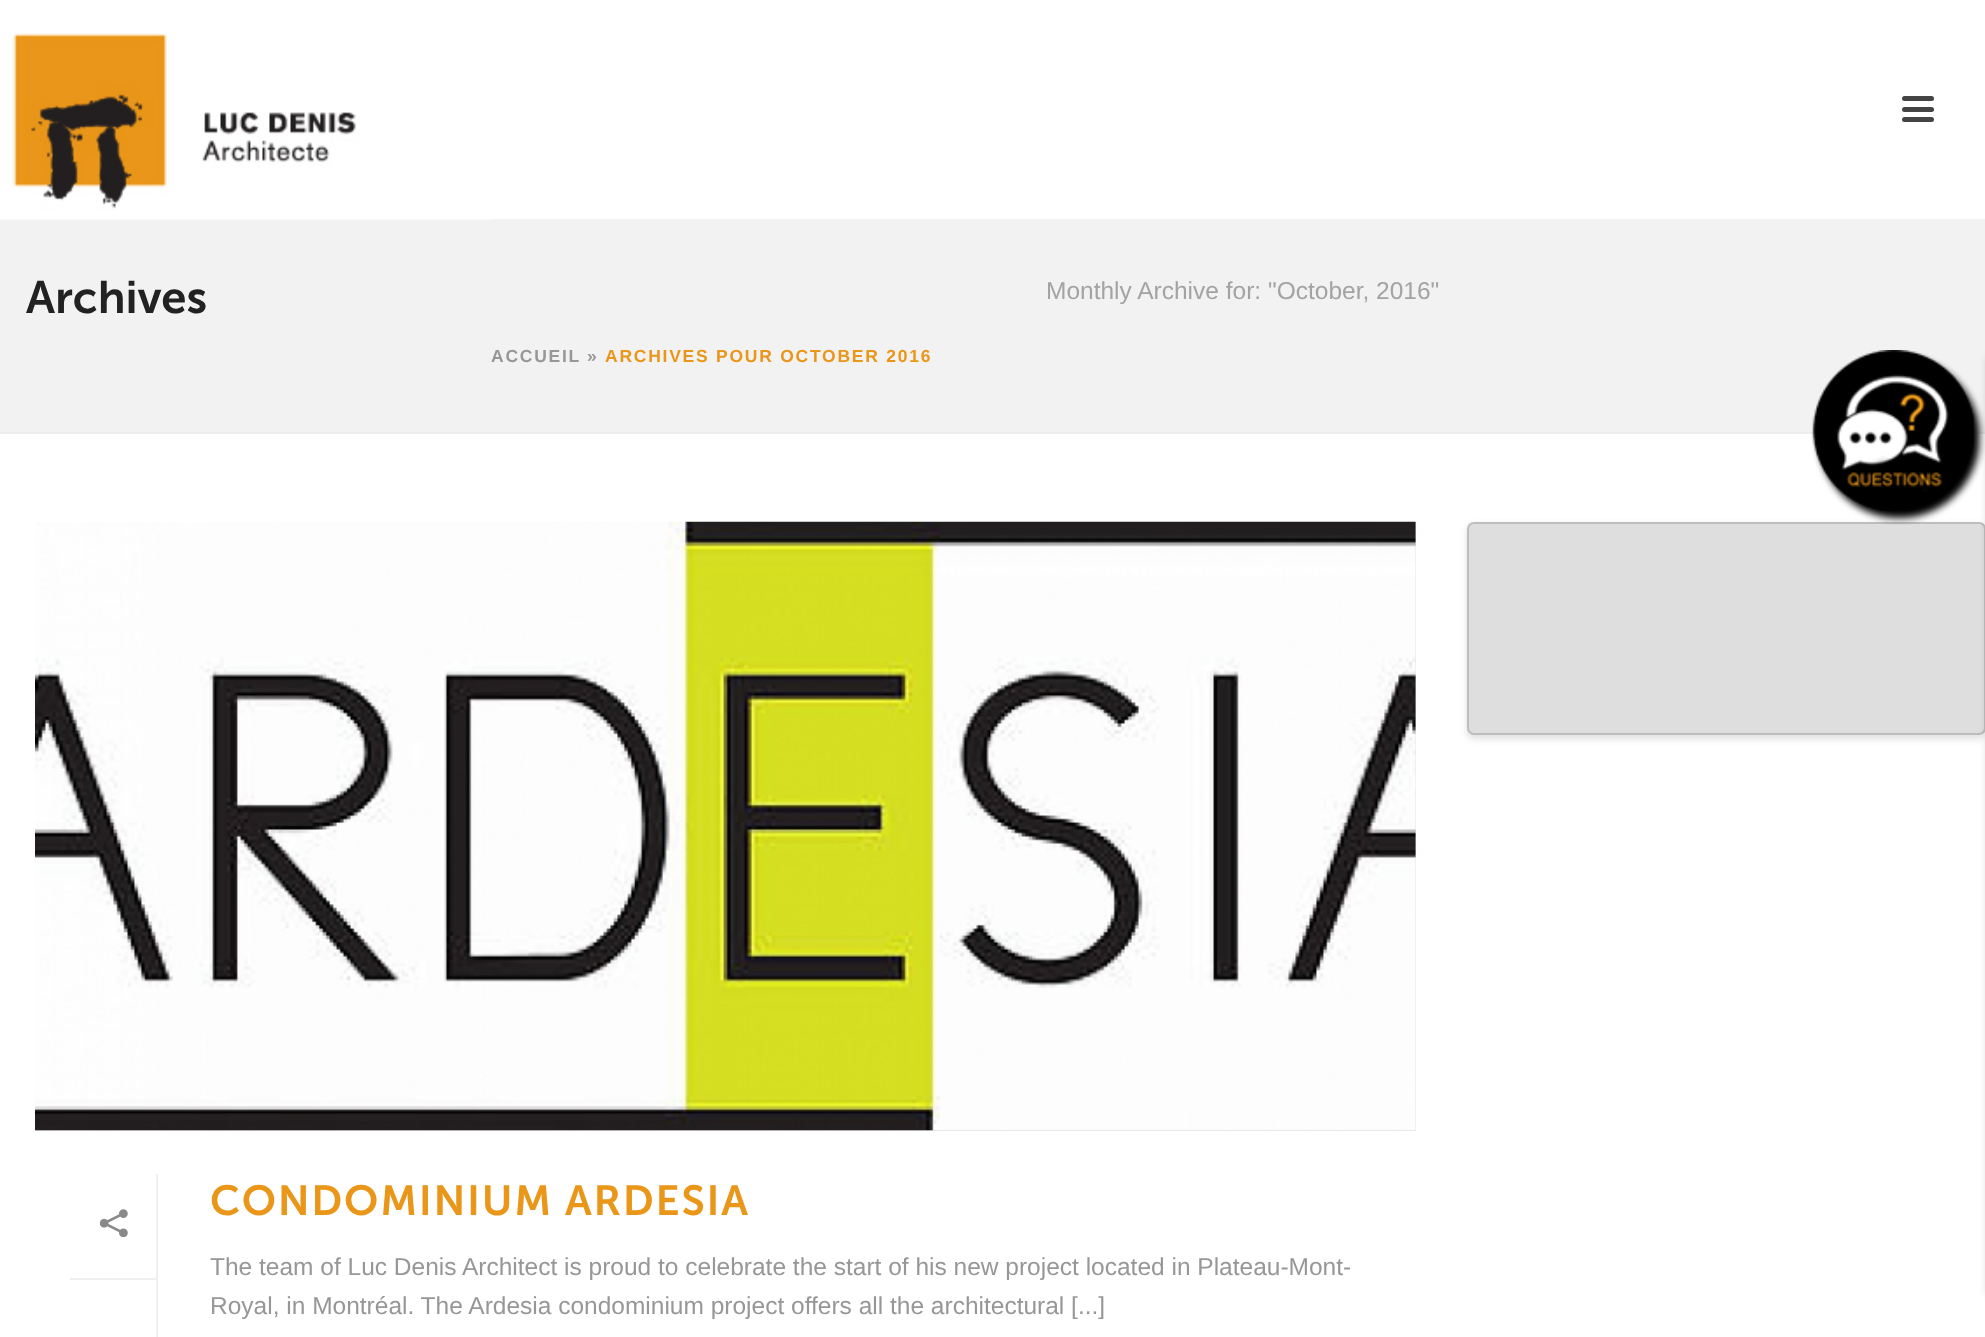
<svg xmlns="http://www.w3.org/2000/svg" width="1985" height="1337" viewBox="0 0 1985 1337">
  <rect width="100%" height="100%" fill="#fff"/>
  <path d="M0 219h1985v213H0z" fill="#f2f2f2"/>
  <path d="M0 432h1985v2H0z" fill="#ededed"/>
  <image x="0" y="33" width="493" height="187" href="img/1.png"/>
  <rect x="1902" y="96" width="32" height="5" rx="2.5" fill="#444"/>
  <rect x="1902" y="107" width="32" height="5" rx="2.5" fill="#444"/>
  <rect x="1902" y="117" width="32" height="5" rx="2.5" fill="#444"/>
  <rect x="1467" y="525" width="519" height="214" rx="7" fill="#0000001f" filter="blur(3.5px)"/>
  <rect x="1467" y="522" width="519" height="213" rx="7" fill="#dedede"/>
  <rect x="1468" y="523" width="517" height="211" rx="6" fill="none" stroke="#00000026" stroke-width="2"/>
  <path d="M35 522h1381v609H35z" fill="#e0e0e0"/>
  <image x="35" y="521" width="1381" height="610" href="img/2.png"/>
  <path d="M156 1174h2v163H156z" fill="#efefef"/>
  <path d="M70 1278h86v2H70z" fill="#efefef"/>
  <image x="100" y="1209" width="28" height="28" href="img/3.png"/>
  <rect x="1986" y="354" width="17" height="943" rx="7" fill="#0000001f" filter="blur(3.5px)"/>
  <image x="1811" y="350" width="174" height="175" href="img/4.png"/>
  <text x="26" y="313" font-family="Museo Sans" font-size="45.5" font-weight="600" fill="#222">Archives</text>
  <text x="1046" y="299" font-family="Liberation Sans" font-size="24.5" fill="#a3a3a3">Monthly Archive for: "October, 2016"</text>
  <g font-family="Liberation Sans" font-size="17.5" font-weight="bold" letter-spacing="1.75" fill="#979797">
    <text x="491" y="362">ACCUEIL</text>
    <text x="587" y="362">»</text>
  </g>
  <text x="605" y="362" font-family="Liberation Sans" font-size="17.5" font-weight="bold" letter-spacing="1.75" fill="#e99619">ARCHIVES POUR OCTOBER 2016</text>
  <text x="210" y="1215" font-family="Museo Sans" font-size="42" font-weight="600" letter-spacing="1.75" fill="#e99619">CONDOMINIUM ARDESIA</text>
  <g font-family="Liberation Sans" font-size="24.5" fill="#979797">
    <text x="210" y="1275">The team of Luc Denis Architect is proud to celebrate the start of his new project located in Plateau-Mont-</text>
    <text x="210" y="1314">Royal, in Montréal. The Ardesia condominium project offers all the architectural [...]</text>
  </g>
</svg>
